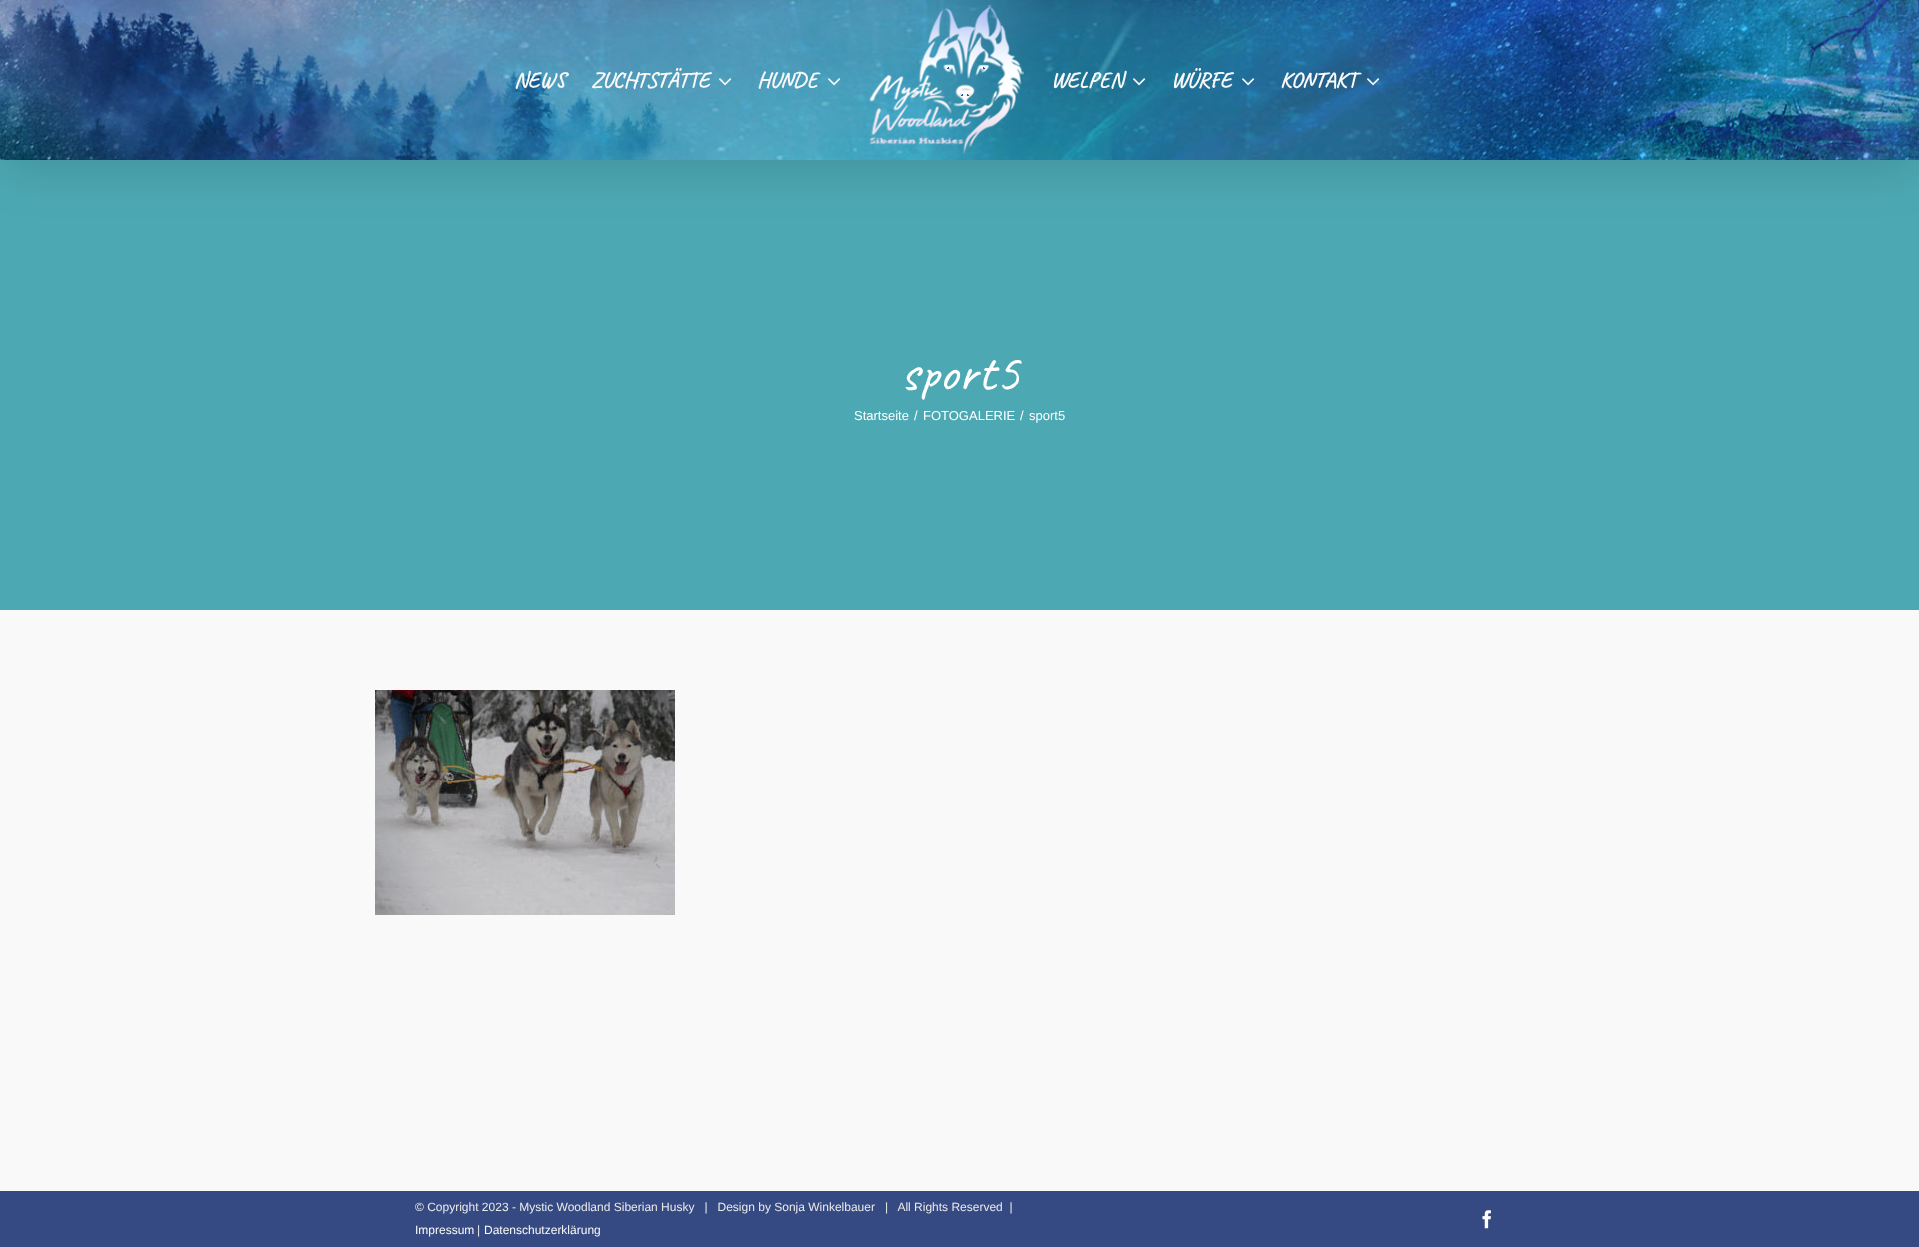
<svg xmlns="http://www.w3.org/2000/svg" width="1919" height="1247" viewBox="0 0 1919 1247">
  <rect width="100%" height="100%" fill="#f9f9f9"/>
  <path d="M0 160h1919v450H0z" fill="#4ca9b4"/>
  <path d="M2 12h1915v156H2z" fill="#00000024" filter="blur(25px)"/>
  <image x="0" y="0" width="1919" height="160" href="img/1.png"/>
  <image x="719" y="78" width="13" height="8" href="img/2.png"/>
  <image x="828" y="78" width="13" height="8" href="img/3.png"/>
  <image x="867" y="5" width="157" height="150" href="img/4.png"/>
  <image x="1133" y="78" width="13" height="8" href="img/5.png"/>
  <image x="1242" y="78" width="13" height="8" href="img/6.png"/>
  <image x="1367" y="78" width="13" height="8" href="img/7.png"/>
  <image x="375" y="690" width="300" height="225" href="img/8.png"/>
  <path d="M0 1191h1919v56H0z" fill="#354a82"/>
  <image x="1482" y="1210" width="9" height="19" href="img/9.png"/>
  <g font-family="Caveat" font-size="22" font-weight="bold" fill="#f9f9f9">
    <text x="514" y="87">NEWS</text>
    <text x="591" y="87">ZUCHTSTÄTTE</text>
    <text x="757" y="87">HUNDE</text>
    <text x="1051" y="87">WELPEN</text>
    <text x="1171" y="87">WÜRFE</text>
    <text x="1280" y="87">KONTAKT</text>
  </g>
  <text x="900" y="390" font-family="Caveat" font-size="54" fill="#fff">sport5</text>
  <g font-family="Liberation Sans" font-size="13" fill="#fff">
    <text x="854" y="420">Startseite</text>
    <text x="914" y="420">/</text>
    <text x="923" y="420">FOTOGALERIE</text>
    <text x="1020" y="420">/</text>
    <text x="1029" y="420">sport5</text>
  </g>
  <text x="415" y="1211" font-family="Liberation Sans" font-size="12" fill="#eaeaea" xml:space="preserve">© Copyright 2023 - Mystic Woodland Siberian Husky   |   Design by Sonja Winkelbauer   |   All Rights Reserved  |</text>
  <text x="415" y="1234" font-family="Liberation Sans" font-size="12" fill="#f9f9f9">Impressum</text>
  <text x="477" y="1234" font-family="Liberation Sans" font-size="12" fill="#eaeaea">|</text>
  <text x="484" y="1234" font-family="Liberation Sans" font-size="12" fill="#f9f9f9">Datenschutzerklärung</text>
</svg>
